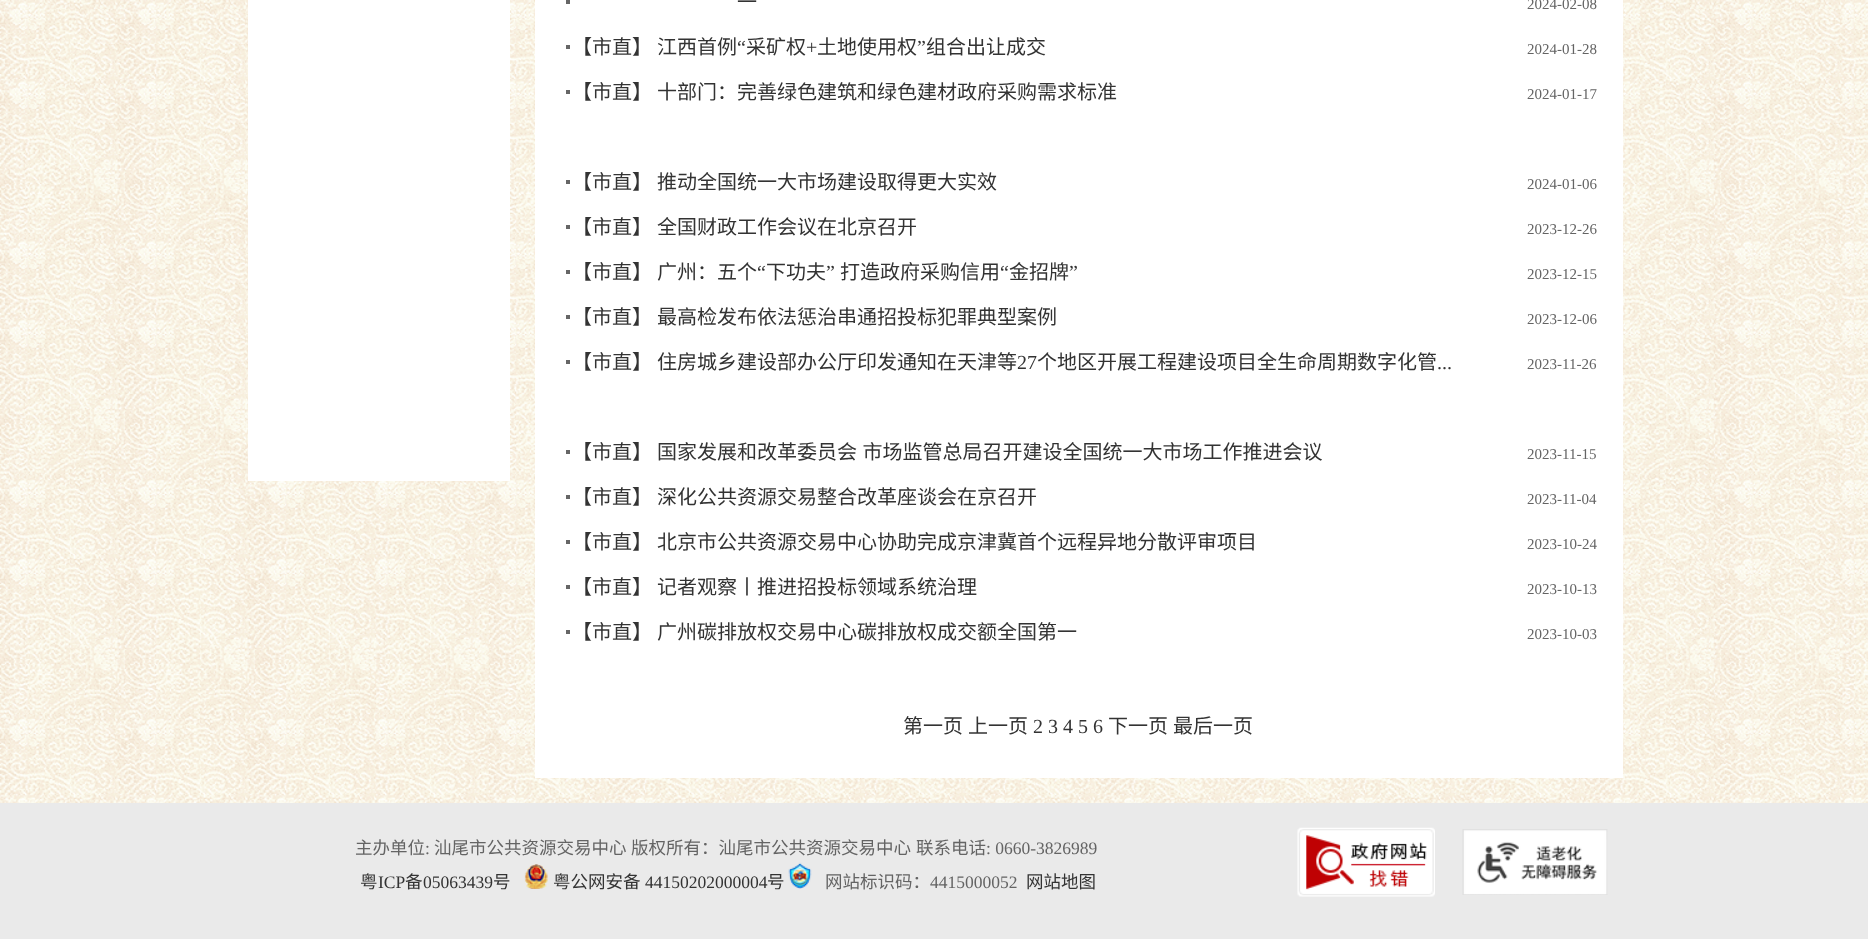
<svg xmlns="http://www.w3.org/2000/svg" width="1868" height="939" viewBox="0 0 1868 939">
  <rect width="100%" height="100%" fill="#fff"/>
  <image x="0" y="0" width="1868" height="803" href="img/1.png"/>
  <path d="M248 0h262v481H248z" fill="#fff"/>
  <path d="M535 0h1088v778H535z" fill="#fff"/>
  <path d="M566 0h4v4H566z" fill="#666"/>
  <path d="M566 45h4v4H566z" fill="#666"/>
  <path d="M566 90h4v4H566z" fill="#666"/>
  <path d="M566 180h4v4H566z" fill="#666"/>
  <path d="M566 225h4v4H566z" fill="#666"/>
  <path d="M566 270h4v4H566z" fill="#666"/>
  <path d="M566 315h4v4H566z" fill="#666"/>
  <path d="M566 360h4v4H566z" fill="#666"/>
  <path d="M566 450h4v4H566z" fill="#666"/>
  <path d="M566 495h4v4H566z" fill="#666"/>
  <path d="M566 540h4v4H566z" fill="#666"/>
  <path d="M566 585h4v4H566z" fill="#666"/>
  <path d="M566 630h4v4H566z" fill="#666"/>
  <path d="M0 803h1868v136H0z" fill="#eaeaea"/>
  <image x="524" y="864" width="24" height="25" href="img/2.png"/>
  <image x="788" y="862" width="24" height="27" href="img/3.png"/>
  <image x="1297" y="827" width="138" height="70" href="img/4.png"/>
  <image x="1462" y="829" width="146" height="66" href="img/5.png"/>
  <text x="737" y="9" word-spacing="1" font-family="Noto Sans CJK SC" font-size="20" fill="#333">一</text>
  <text x="1527" y="9" font-family="Liberation Serif" font-size="15" fill="#646464">2024-02-08</text>
  <g font-family="Noto Sans CJK SC" font-size="20" fill="#333">
    <text x="572" y="54">【市直】</text>
    <text x="657" y="54">江西首例</text>
  </g>
  <text x="737" y="54" font-family="Liberation Serif" font-size="20" fill="#333">“</text>
  <text x="746" y="54" font-family="Noto Sans CJK SC" font-size="20" fill="#333">采矿权</text>
  <text x="806" y="54" font-family="Liberation Serif" font-size="20" fill="#333">+</text>
  <text x="817" y="54" font-family="Noto Sans CJK SC" font-size="20" fill="#333">土地使用权</text>
  <text x="917" y="54" font-family="Liberation Serif" font-size="20" fill="#333">”</text>
  <text x="926" y="54" font-family="Noto Sans CJK SC" font-size="20" fill="#333">组合出让成交</text>
  <text x="1527" y="54" font-family="Liberation Serif" font-size="15" fill="#646464">2024-01-28</text>
  <g font-family="Noto Sans CJK SC" font-size="20" fill="#333">
    <text x="572" y="99">【市直】</text>
    <text x="657" y="99">十部门：完善绿色建筑和绿色建材政府采购需求标准</text>
  </g>
  <text x="1527" y="99" font-family="Liberation Serif" font-size="15" fill="#646464">2024-01-17</text>
  <g font-family="Noto Sans CJK SC" font-size="20" fill="#333">
    <text x="572" y="189">【市直】</text>
    <text x="657" y="189">推动全国统一大市场建设取得更大实效</text>
  </g>
  <text x="1527" y="189" font-family="Liberation Serif" font-size="15" fill="#646464">2024-01-06</text>
  <g font-family="Noto Sans CJK SC" font-size="20" fill="#333">
    <text x="572" y="234">【市直】</text>
    <text x="657" y="234">全国财政工作会议在北京召开</text>
  </g>
  <text x="1527" y="234" font-family="Liberation Serif" font-size="15" fill="#646464">2023-12-26</text>
  <g font-family="Noto Sans CJK SC" font-size="20" fill="#333">
    <text x="572" y="279">【市直】</text>
    <text x="657" y="279">广州：五个</text>
  </g>
  <text x="757" y="279" font-family="Liberation Serif" font-size="20" fill="#333">“</text>
  <text x="766" y="279" font-family="Noto Sans CJK SC" font-size="20" fill="#333">下功夫</text>
  <text x="826" y="279" font-family="Liberation Serif" font-size="20" fill="#333">”</text>
  <text x="840" y="279" font-family="Noto Sans CJK SC" font-size="20" fill="#333">打造政府采购信用</text>
  <text x="1000" y="279" font-family="Liberation Serif" font-size="20" fill="#333">“</text>
  <text x="1009" y="279" font-family="Noto Sans CJK SC" font-size="20" fill="#333">金招牌</text>
  <text x="1069" y="279" font-family="Liberation Serif" font-size="20" fill="#333">”</text>
  <text x="1527" y="279" font-family="Liberation Serif" font-size="15" fill="#646464">2023-12-15</text>
  <g font-family="Noto Sans CJK SC" font-size="20" fill="#333">
    <text x="572" y="324">【市直】</text>
    <text x="657" y="324">最高检发布依法惩治串通招投标犯罪典型案例</text>
  </g>
  <text x="1527" y="324" font-family="Liberation Serif" font-size="15" fill="#646464">2023-12-06</text>
  <g font-family="Noto Sans CJK SC" font-size="20" fill="#333">
    <text x="572" y="369">【市直】</text>
    <text x="657" y="369">住房城乡建设部办公厅印发通知在天津等</text>
  </g>
  <text x="1017" y="369" font-family="Liberation Serif" font-size="20" fill="#333">27</text>
  <text x="1037" y="369" font-family="Noto Sans CJK SC" font-size="20" fill="#333">个地区开展工程建设项目全生命周期数字化管</text>
  <text x="1437" y="369" font-family="Liberation Serif" font-size="20" fill="#333">...</text>
  <text x="1527" y="369" font-family="Liberation Serif" font-size="15" fill="#646464">2023-11-26</text>
  <g font-family="Noto Sans CJK SC" font-size="20" fill="#333">
    <text x="572" y="459">【市直】</text>
    <text x="657" y="459" word-spacing="1">国家发展和改革委员会 市场监管总局召开建设全国统一大市场工作推进会议</text>
  </g>
  <text x="1527" y="459" font-family="Liberation Serif" font-size="15" fill="#646464">2023-11-15</text>
  <g font-family="Noto Sans CJK SC" font-size="20" fill="#333">
    <text x="572" y="504">【市直】</text>
    <text x="657" y="504">深化公共资源交易整合改革座谈会在京召开</text>
  </g>
  <text x="1527" y="504" font-family="Liberation Serif" font-size="15" fill="#646464">2023-11-04</text>
  <g font-family="Noto Sans CJK SC" font-size="20" fill="#333">
    <text x="572" y="549">【市直】</text>
    <text x="657" y="549">北京市公共资源交易中心协助完成京津冀首个远程异地分散评审项目</text>
  </g>
  <text x="1527" y="549" font-family="Liberation Serif" font-size="15" fill="#646464">2023-10-24</text>
  <g font-family="Noto Sans CJK SC" font-size="20" fill="#333">
    <text x="572" y="594">【市直】</text>
    <text x="657" y="594">记者观察丨推进招投标领域系统治理</text>
  </g>
  <text x="1527" y="594" font-family="Liberation Serif" font-size="15" fill="#646464">2023-10-13</text>
  <g font-family="Noto Sans CJK SC" font-size="20" fill="#333">
    <text x="572" y="639">【市直】</text>
    <text x="657" y="639">广州碳排放权交易中心碳排放权成交额全国第一</text>
  </g>
  <text x="1527" y="639" font-family="Liberation Serif" font-size="15" fill="#646464">2023-10-03</text>
  <g font-family="Noto Sans CJK SC" font-size="20" fill="#333">
    <text x="903" y="733">第一页</text>
    <text x="968" y="733">上一页</text>
  </g>
  <text x="1033" y="733" font-family="Liberation Serif" font-size="20" fill="#333">2 3 4 5 6</text>
  <g font-family="Noto Sans CJK SC" font-size="20" fill="#333">
    <text x="1108" y="733">下一页</text>
    <text x="1173" y="733">最后一页</text>
  </g>
  <text x="355" y="854" font-family="Noto Sans CJK SC" font-size="17.5" fill="#646464">主办单位</text>
  <text x="425" y="854" font-family="Liberation Serif" font-size="17.5" fill="#646464">:</text>
  <g font-family="Noto Sans CJK SC" font-size="17.5" fill="#646464">
    <text x="434" y="854">汕尾市公共资源交易中心</text>
    <text x="631" y="854">版权所有：汕尾市公共资源交易中心</text>
    <text x="916" y="854">联系电话</text>
  </g>
  <text x="986" y="854" font-family="Liberation Serif" font-size="17.5" fill="#646464">: 0660-3826989</text>
  <text x="360" y="888" font-family="Noto Sans CJK SC" font-size="17.5" fill="#333">粤</text>
  <text x="378" y="888" font-family="Liberation Serif" font-size="17.5" fill="#333">ICP</text>
  <text x="405" y="888" font-family="Noto Sans CJK SC" font-size="17.5" fill="#333">备</text>
  <text x="423" y="888" font-family="Liberation Serif" font-size="17.5" fill="#333">05063439</text>
  <g font-family="Noto Sans CJK SC" font-size="17.5" fill="#333">
    <text x="493" y="888">号</text>
    <text x="553" y="888">粤公网安备</text>
  </g>
  <text x="645" y="888" font-family="Liberation Serif" font-size="17.5" fill="#333">44150202000004</text>
  <text x="767" y="888" font-family="Noto Sans CJK SC" font-size="17.5" fill="#333">号</text>
  <text x="825" y="888" font-family="Noto Sans CJK SC" font-size="17.5" fill="#646464">网站标识码：</text>
  <text x="930" y="888" font-family="Liberation Serif" font-size="17.5" fill="#646464">4415000052</text>
  <text x="1026" y="888" font-family="Noto Sans CJK SC" font-size="17.5" fill="#333">网站地图</text>
</svg>
